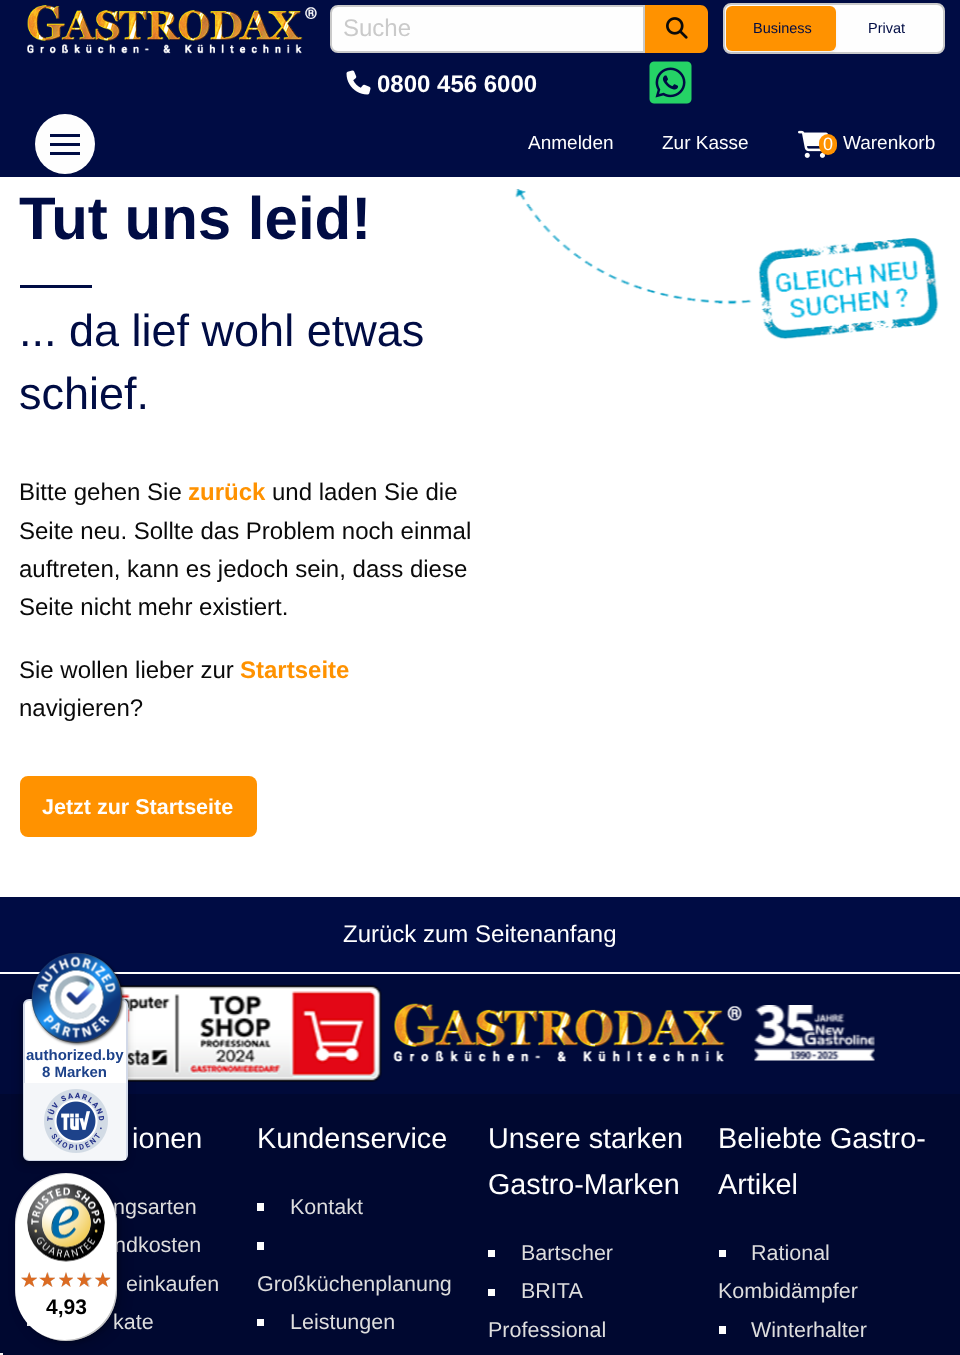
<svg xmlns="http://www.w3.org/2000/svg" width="960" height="1355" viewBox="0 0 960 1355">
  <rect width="100%" height="100%" fill="#fff"/>
  <path d="M0 0h960v177H0z" fill="#000c44"/>
  <image x="27" y="5" width="290" height="49" href="img/1.png"/>
  <path d="M338 6H644V52H338C334 52 331 49 331 45V13C331 9 334 6 338 6Z" fill="#fefefe" stroke="#cacaca" stroke-width="2"/>
  <path d="M645 5H700C704.5 5 708 8.5 708 13V45C708 49.5 704.5 53 700 53H645Z" fill="#ff9200"/>
  <image x="666" y="17" width="22" height="22" href="img/2.png"/>
  <rect x="724" y="4" width="220" height="49" rx="7" fill="#fefefe" stroke="#cacaca" stroke-width="2"/>
  <rect x="726" y="8" width="110" height="45" rx="6" fill="#0000000d" filter="blur(1.5px)"/>
  <rect x="726" y="6" width="110" height="45" rx="6" fill="#ff9200"/>
  <image x="346" y="70" width="25" height="25" href="img/3.png"/>
  <image x="649" y="61" width="43" height="43" href="img/4.png"/>
  <circle cx="65" cy="144" r="30" fill="#fefefe"/>
  <path d="M50 143h30v3H50z" fill="#000c44"/>
  <path d="M50 134h30v3H50z" fill="#000c44"/>
  <path d="M50 152h30v3H50z" fill="#000c44"/>
  <image x="798" y="130" width="31" height="28" href="img/5.png"/>
  <rect x="819" y="134" width="18" height="21" rx="9" fill="#ff9200"/>
  <path d="M20 285h72v3H20z" fill="#000c44"/>
  <image x="515" y="189" width="424" height="151" href="img/6.png"/>
  <rect x="20" y="776" width="237" height="61" rx="8" fill="#ff9200"/>
  <path d="M0 897h960v75H0z" fill="#000c44"/>
  <path d="M0 974h960v120H0z" fill="#000a3a"/>
  <image x="120" y="985" width="262" height="97" href="img/7.png"/>
  <image x="393" y="1003" width="349" height="59" href="img/8.png"/>
  <image x="754" y="1005" width="121" height="56" href="img/9.png"/>
  <path d="M0 1094h960v261H0z" fill="#000830"/>
  <path d="M27 1322h8v4H27z" fill="#fefefe"/>
  <path d="M257 1203h7v8H257z" fill="#fefefe"/>
  <path d="M257 1242h7v8H257z" fill="#fefefe"/>
  <path d="M257 1319h7v7H257z" fill="#fefefe"/>
  <path d="M488 1250h7v7H488z" fill="#fefefe"/>
  <path d="M488 1289h7v7H488z" fill="#fefefe"/>
  <path d="M719 1250h7v7H719z" fill="#fefefe"/>
  <path d="M719 1326h7v8H719z" fill="#fefefe"/>
  <rect x="21" y="1002" width="105" height="162" rx="6" fill="#0000004d" filter="blur(4.5px)"/>
  <rect x="24" y="1000" width="103" height="160" rx="5" fill="#fff" stroke="#d2d9e8" stroke-width="2"/>
  <rect x="33" y="954" width="90" height="90" rx="45" fill="#000000b3" filter="blur(1.5px)"/>
  <circle cx="77" cy="998" r="45" fill="#444"/>
  <image x="31" y="952" width="91" height="91" href="img/10.png"/>
  <path d="M24 1083H126V1160H30C26.5 1160 24 1157.5 24 1154Z" fill="#f4f6f9"/>
  <image x="44" y="1089" width="64" height="64" href="img/11.png"/>
  <rect x="20" y="1178" width="102" height="168" rx="51" fill="#00000026" filter="blur(6px)"/>
  <rect x="17" y="1175" width="102" height="168" rx="51" fill="#00000026" filter="blur(1.5px)"/>
  <path d="M0 1353h3v2H0z" fill="#f5f5f5"/>
  <text x="343" y="36" font-family="Liberation Sans" font-size="24" fill="#cacaca">Suche</text>
  <g font-family="Liberation Sans" font-size="14.5" fill="#000c44">
    <text x="753" y="33">Business</text>
    <text x="868" y="33">Privat</text>
  </g>
  <text x="377" y="92" font-family="Liberation Sans" font-size="24" font-weight="bold" fill="#fefefe">0800 456 6000</text>
  <g font-family="Liberation Sans" font-size="19" fill="#fefefe">
    <text x="528" y="149">Anmelden</text>
    <text x="662" y="149">Zur Kasse</text>
    <text x="843" y="149">Warenkorb</text>
  </g>
  <text x="823" y="150" font-family="Liberation Sans" font-size="18" fill="#fefefe">0</text>
  <text x="19" y="239" font-family="Liberation Sans" font-size="60" font-weight="bold" fill="#000c44">Tut uns leid!</text>
  <g font-family="Liberation Sans" font-size="45" fill="#000c44">
    <text x="19" y="346">... da lief wohl etwas</text>
    <text x="19" y="409">schief.</text>
  </g>
  <text x="19" y="500" font-family="Liberation Sans" font-size="24" fill="#0a0a0a">Bitte gehen Sie</text>
  <text x="188" y="500" font-family="Liberation Sans" font-size="24" font-weight="bold" fill="#ff9200">zurück</text>
  <g font-family="Liberation Sans" font-size="24" fill="#0a0a0a">
    <text x="272" y="500">und laden Sie die</text>
    <text x="19" y="539">Seite neu. Sollte das Problem noch einmal</text>
    <text x="19" y="577">auftreten, kann es jedoch sein, dass diese</text>
    <text x="19" y="615">Seite nicht mehr existiert.</text>
    <text x="19" y="678">Sie wollen lieber zur</text>
  </g>
  <text x="240" y="678" font-family="Liberation Sans" font-size="24" font-weight="bold" fill="#ff9200">Startseite</text>
  <text x="19" y="716" font-family="Liberation Sans" font-size="24" fill="#0a0a0a">navigieren?</text>
  <text x="42" y="814" font-family="Liberation Sans" font-size="21.5" font-weight="bold" fill="#fefefe">Jetzt zur Startseite</text>
  <text x="343" y="942" font-family="Liberation Sans" font-size="24" fill="#fefefe">Zurück zum Seitenanfang</text>
  <text x="132" y="1148" font-family="Liberation Sans" font-size="28.75" fill="#fefefe">ionen</text>
  <g font-family="Liberation Sans" font-size="21.5" fill="#ddd">
    <text x="113" y="1214">ngsarten</text>
    <text x="114" y="1252">ndkosten</text>
    <text x="126" y="1291">einkaufen</text>
    <text x="113" y="1329">kate</text>
  </g>
  <text x="257" y="1148" font-family="Liberation Sans" font-size="28.75" fill="#fefefe">Kundenservice</text>
  <g font-family="Liberation Sans" font-size="21.5" fill="#ddd">
    <text x="290" y="1214">Kontakt</text>
    <text x="257" y="1291">Großküchenplanung</text>
    <text x="290" y="1329">Leistungen</text>
  </g>
  <g font-family="Liberation Sans" font-size="28.75" fill="#fefefe">
    <text x="488" y="1148">Unsere starken</text>
    <text x="488" y="1194">Gastro-Marken</text>
  </g>
  <g font-family="Liberation Sans" font-size="21.5" fill="#ddd">
    <text x="521" y="1260">Bartscher</text>
    <text x="521" y="1298">BRITA</text>
    <text x="488" y="1337">Professional</text>
  </g>
  <g font-family="Liberation Sans" font-size="28.75" fill="#fefefe">
    <text x="718" y="1148">Beliebte Gastro-</text>
    <text x="718" y="1194">Artikel</text>
  </g>
  <g font-family="Liberation Sans" font-size="21.5" fill="#ddd">
    <text x="751" y="1260">Rational</text>
    <text x="718" y="1298">Kombidämpfer</text>
    <text x="751" y="1337">Winterhalter</text>
  </g>
  <g font-family="Liberation Sans" font-size="15" font-weight="bold" fill="#1d428a">
    <text x="26" y="1060">authorized.by</text>
    <text x="42" y="1077">8 Marken</text>
  </g>
  <rect x="15" y="1173" width="102" height="168" rx="51" fill="#fff"/>
  <path d="M68 1174C78 1174 87 1177 95 1182C87 1176 77 1173 66 1173C38 1173 15 1196 15 1224V1290C15 1301 18 1311 24 1319C19 1311 16 1302 16 1292V1226C16 1197 39 1174 68 1174Z" fill="#0000001a"/>
  <path d="M37 1332C45 1338 55 1341 66 1341C94 1341 117 1318 117 1290V1224C117 1213 114 1203 108 1195C113 1203 116 1212 116 1222V1288C116 1317 93 1340 64 1340C54 1340 45 1337 37 1332Z" fill="#00000033"/>
  <path d="M27 1323C37 1334 51 1341 66 1341C94 1341 117 1318 117 1290V1224C117 1209 110 1195 99 1185C110 1195 116 1208 116 1223V1289C116 1317 93 1340 65 1340C50 1340 37 1334 27 1323Z" fill="#32323233"/>
  <path d="M27 1323C37 1334 51 1341 66 1341C94 1341 117 1318 117 1290V1224C117 1209 110 1195 99 1185C110 1195 116 1208 116 1223V1289C116 1317 93 1340 65 1340C50 1340 37 1334 27 1323Z" fill="#ffffff4d"/>
  <image x="27" y="1183" width="78" height="79" href="img/12.png"/>
  <image x="21" y="1272" width="16" height="15" href="img/13.png"/>
  <image x="41" y="1272" width="14" height="15" href="img/14.png"/>
  <image x="59" y="1272" width="14" height="15" href="img/15.png"/>
  <image x="77" y="1272" width="16" height="15" href="img/16.png"/>
  <image x="95" y="1272" width="16" height="15" href="img/17.png"/>
  <image x="21" y="1272" width="16" height="15" href="img/18.png"/>
  <image x="39" y="1272" width="16" height="15" href="img/19.png"/>
  <image x="59" y="1272" width="14" height="15" href="img/20.png"/>
  <image x="77" y="1272" width="14" height="15" href="img/21.png"/>
  <image x="95" y="1272" width="15" height="15" href="img/22.png"/>
  <text x="46" y="1314" font-family="Liberation Sans" font-size="21" font-weight="bold" fill="#000">4,93</text>
</svg>
